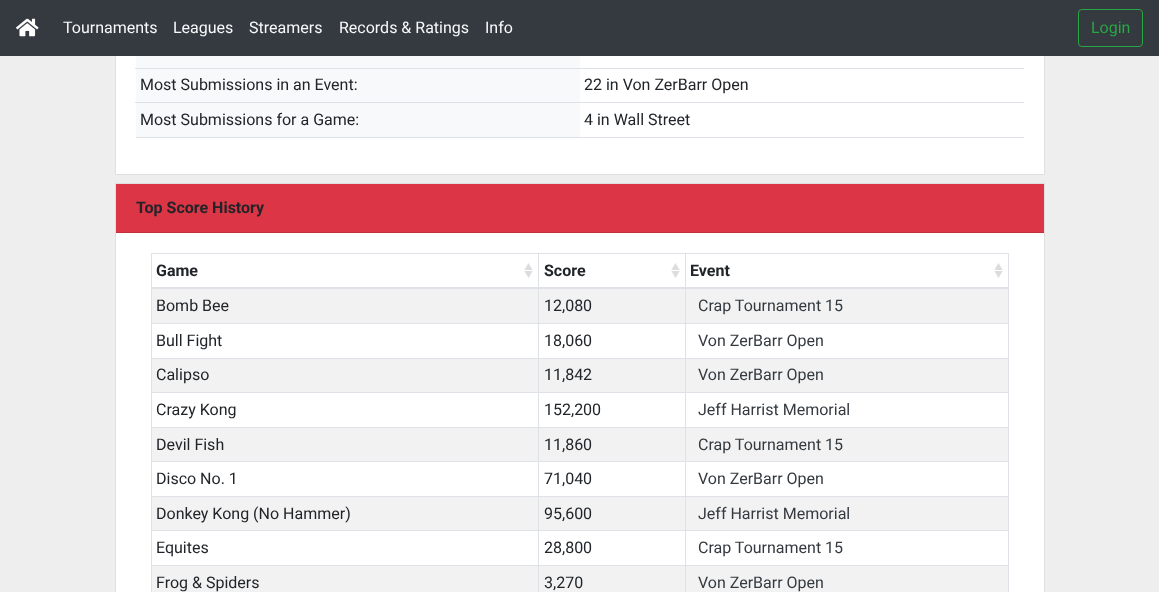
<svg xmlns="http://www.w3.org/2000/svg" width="1159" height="592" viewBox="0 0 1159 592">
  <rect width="100%" height="100%" fill="#eee"/>
  <path d="M116 56h928v118H116z" fill="#fff"/>
  <path d="M115.5 -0.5h929v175H115.5z" fill="none" stroke="#dfdfdf"/>
  <path d="M0 0h1159v56H0z" fill="#343a40"/>
  <image x="16" y="18" width="23" height="19" href="img/1.png"/>
  <rect x="1078.5" y="9.5" width="64" height="37" rx="3.5" fill="none" stroke="#28a745"/>
  <path d="M136 137h888v1H136z" fill="#dee2e6"/>
  <path d="M136 56h444v12H136z" fill="#f8f9fa"/>
  <path d="M136 69h444v33H136z" fill="#f8f9fa"/>
  <path d="M135 68h889v1H135z" fill="#dee2e6"/>
  <path d="M136 103h444v34H136z" fill="#f8f9fa"/>
  <path d="M135 102h889v1H135z" fill="#dee2e6"/>
  <path d="M116 233h928v359H116z" fill="#fff"/>
  <path d="M115.5 183.5h929v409H115.5z" fill="none" stroke="#dfdfdf"/>
  <path d="M116 184h928v48H116z" fill="#dc3545"/>
  <path d="M116 232h928v1H116z" fill="#c12e3c"/>
  <path d="M151 253h858v1H151z" fill="#dee2e6"/>
  <path d="M1008 253h1v339H1008z" fill="#dee2e6"/>
  <path d="M151 253h1v339H151z" fill="#dee2e6"/>
  <image x="524" y="263" width="9" height="15" href="img/2.png"/>
  <image x="671" y="263" width="9" height="15" href="img/2.png"/>
  <path d="M152 289h856v34H152z" fill="#f2f2f2"/>
  <path d="M685 323h324v1H685z" fill="#dee2e6"/>
  <path d="M685 358h324v1H685z" fill="#dee2e6"/>
  <path d="M152 359h856v33H152z" fill="#f2f2f2"/>
  <path d="M685 392h324v1H685z" fill="#dee2e6"/>
  <path d="M685 427h324v1H685z" fill="#dee2e6"/>
  <path d="M152 428h856v33H152z" fill="#f2f2f2"/>
  <path d="M685 461h324v1H685z" fill="#dee2e6"/>
  <path d="M685 496h324v1H685z" fill="#dee2e6"/>
  <path d="M152 497h856v33H152z" fill="#f2f2f2"/>
  <path d="M685 530h324v1H685z" fill="#dee2e6"/>
  <path d="M685 565h324v1H685z" fill="#dee2e6"/>
  <path d="M152 566h856v26H152z" fill="#f2f2f2"/>
  <path d="M685 565h1v27H685z" fill="#dee2e6"/>
  <path d="M538 565h148v1H538z" fill="#dee2e6"/>
  <path d="M685 530h1v36H685z" fill="#dee2e6"/>
  <path d="M538 530h148v1H538z" fill="#dee2e6"/>
  <path d="M685 496h1v35H685z" fill="#dee2e6"/>
  <path d="M538 496h148v1H538z" fill="#dee2e6"/>
  <path d="M685 461h1v36H685z" fill="#dee2e6"/>
  <path d="M538 461h148v1H538z" fill="#dee2e6"/>
  <path d="M685 427h1v35H685z" fill="#dee2e6"/>
  <path d="M538 427h148v1H538z" fill="#dee2e6"/>
  <path d="M685 392h1v36H685z" fill="#dee2e6"/>
  <path d="M538 392h148v1H538z" fill="#dee2e6"/>
  <path d="M685 358h1v35H685z" fill="#dee2e6"/>
  <path d="M538 358h148v1H538z" fill="#dee2e6"/>
  <path d="M685 323h1v36H685z" fill="#dee2e6"/>
  <path d="M538 323h148v1H538z" fill="#dee2e6"/>
  <path d="M538 565h1v27H538z" fill="#dee2e6"/>
  <path d="M151 565h388v1H151z" fill="#dee2e6"/>
  <path d="M538 530h1v36H538z" fill="#dee2e6"/>
  <path d="M151 530h388v1H151z" fill="#dee2e6"/>
  <path d="M538 496h1v35H538z" fill="#dee2e6"/>
  <path d="M151 496h388v1H151z" fill="#dee2e6"/>
  <path d="M538 461h1v36H538z" fill="#dee2e6"/>
  <path d="M151 461h388v1H151z" fill="#dee2e6"/>
  <path d="M538 427h1v35H538z" fill="#dee2e6"/>
  <path d="M151 427h388v1H151z" fill="#dee2e6"/>
  <path d="M538 392h1v36H538z" fill="#dee2e6"/>
  <path d="M151 392h388v1H151z" fill="#dee2e6"/>
  <path d="M538 358h1v35H538z" fill="#dee2e6"/>
  <path d="M151 358h388v1H151z" fill="#dee2e6"/>
  <path d="M538 323h1v36H538z" fill="#dee2e6"/>
  <path d="M151 323h388v1H151z" fill="#dee2e6"/>
  <path d="M538 253h1v71H538z" fill="#dee2e6"/>
  <path d="M685 253h1v71H685z" fill="#dee2e6"/>
  <path d="M151 287h858v2H151z" fill="#dee2e6"/>
  <image x="994" y="263" width="9" height="15" href="img/2.png"/>
  <g font-family="Roboto" font-size="16" fill="#f8f9fa">
    <text x="63" y="33">Tournaments</text>
    <text x="173" y="33">Leagues</text>
    <text x="249" y="33">Streamers</text>
    <text x="339" y="33">Records &amp; Ratings</text>
    <text x="485" y="33">Info</text>
  </g>
  <text x="1091" y="33" font-family="Roboto" font-size="16" fill="#28a745">Login</text>
  <g font-family="Roboto" font-size="16" fill="#212529">
    <text x="140" y="90">Most Submissions in an Event:</text>
    <text x="584" y="90">22 in Von ZerBarr Open</text>
    <text x="140" y="125">Most Submissions for a Game:</text>
    <text x="584" y="125">4 in Wall Street</text>
  </g>
  <g font-family="Roboto" font-size="16" font-weight="bold" fill="#212529">
    <text x="136" y="213">Top Score History</text>
    <text x="156" y="276">Game</text>
    <text x="544" y="276">Score</text>
    <text x="690" y="276">Event</text>
  </g>
  <g font-family="Roboto" font-size="16" fill="#212529">
    <text x="156" y="311">Bomb Bee</text>
    <text x="544" y="311">12,080</text>
  </g>
  <text x="698" y="311" font-family="Roboto" font-size="16" fill="#343a40">Crap Tournament 15</text>
  <g font-family="Roboto" font-size="16" fill="#212529">
    <text x="156" y="346">Bull Fight</text>
    <text x="544" y="346">18,060</text>
  </g>
  <text x="698" y="346" font-family="Roboto" font-size="16" fill="#343a40">Von ZerBarr Open</text>
  <g font-family="Roboto" font-size="16" fill="#212529">
    <text x="156" y="380">Calipso</text>
    <text x="544" y="380">11,842</text>
  </g>
  <text x="698" y="380" font-family="Roboto" font-size="16" fill="#343a40">Von ZerBarr Open</text>
  <g font-family="Roboto" font-size="16" fill="#212529">
    <text x="156" y="415">Crazy Kong</text>
    <text x="544" y="415">152,200</text>
  </g>
  <text x="698" y="415" font-family="Roboto" font-size="16" fill="#343a40">Jeff Harrist Memorial</text>
  <g font-family="Roboto" font-size="16" fill="#212529">
    <text x="156" y="450">Devil Fish</text>
    <text x="544" y="450">11,860</text>
  </g>
  <text x="698" y="450" font-family="Roboto" font-size="16" fill="#343a40">Crap Tournament 15</text>
  <g font-family="Roboto" font-size="16" fill="#212529">
    <text x="156" y="484">Disco No. 1</text>
    <text x="544" y="484">71,040</text>
  </g>
  <text x="698" y="484" font-family="Roboto" font-size="16" fill="#343a40">Von ZerBarr Open</text>
  <g font-family="Roboto" font-size="16" fill="#212529">
    <text x="156" y="519">Donkey Kong (No Hammer)</text>
    <text x="544" y="519">95,600</text>
  </g>
  <text x="698" y="519" font-family="Roboto" font-size="16" fill="#343a40">Jeff Harrist Memorial</text>
  <g font-family="Roboto" font-size="16" fill="#212529">
    <text x="156" y="553">Equites</text>
    <text x="544" y="553">28,800</text>
  </g>
  <text x="698" y="553" font-family="Roboto" font-size="16" fill="#343a40">Crap Tournament 15</text>
  <g font-family="Roboto" font-size="16" fill="#212529">
    <text x="156" y="588">Frog &amp; Spiders</text>
    <text x="544" y="588">3,270</text>
  </g>
  <text x="698" y="588" font-family="Roboto" font-size="16" fill="#343a40">Von ZerBarr Open</text>
</svg>
